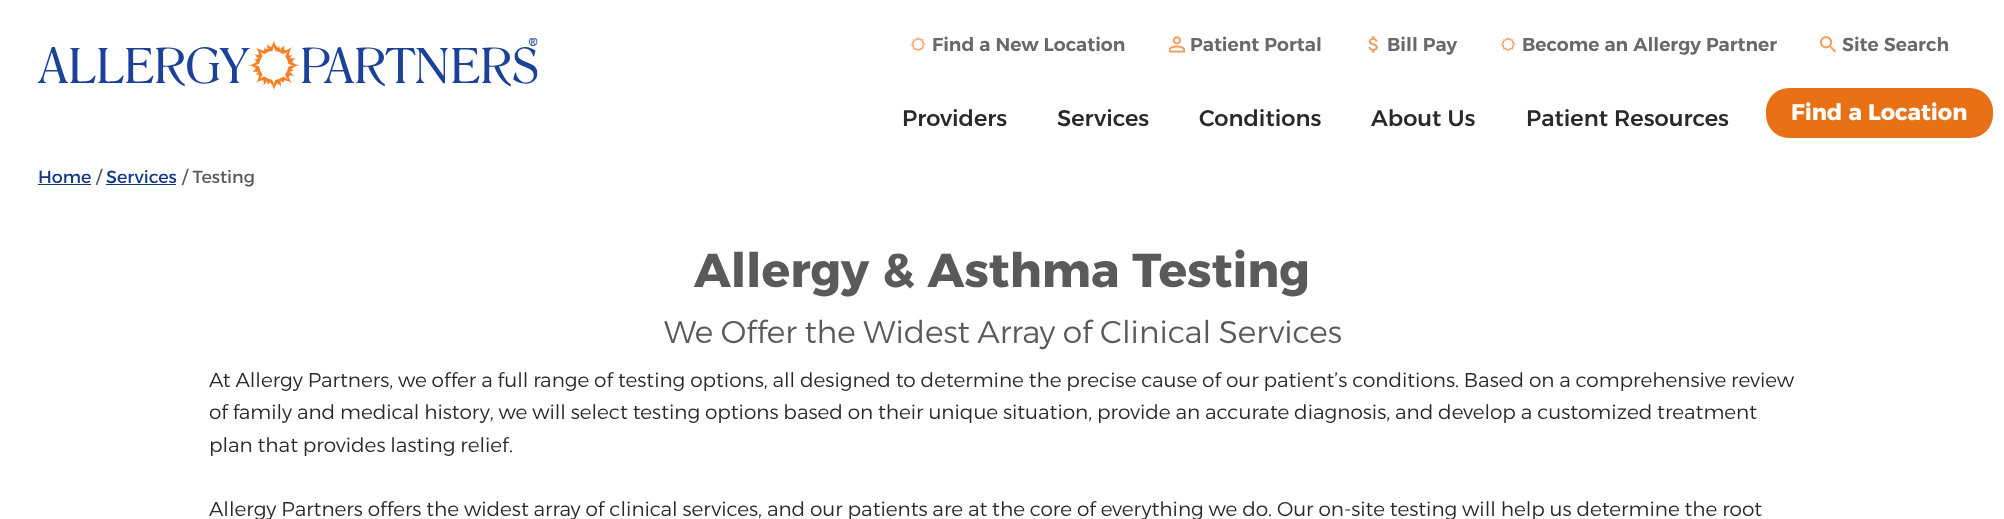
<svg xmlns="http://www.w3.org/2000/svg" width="2004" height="519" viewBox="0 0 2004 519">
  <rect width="100%" height="100%" fill="#fff"/>
  <image x="38" y="38" width="500" height="53" href="img/1.png"/>
  <image x="910" y="36" width="16" height="17" href="img/2.png"/>
  <image x="1169" y="36" width="16" height="17" href="img/3.png"/>
  <image x="1368" y="36" width="10" height="17" href="img/4.png"/>
  <image x="1500" y="36" width="16" height="17" href="img/2.png"/>
  <image x="1820" y="36" width="16" height="17" href="img/5.png"/>
  <rect x="1766" y="88" width="227" height="50" rx="23" fill="#e87115"/>
  <path d="M38 184h53v1H38z" fill="#143784"/>
  <path d="M106 184h70v1H106z" fill="#143784"/>
  <g font-family="Alexandria" font-size="18.75" font-weight="600" fill="#696969">
    <text x="932" y="51">Find a New Location</text>
    <text x="1190" y="51">Patient Portal</text>
    <text x="1387" y="51">Bill Pay</text>
    <text x="1522" y="51">Become an Allergy Partner</text>
    <text x="1842" y="51">Site Search</text>
  </g>
  <g font-family="Alexandria" font-size="22.5" font-weight="500" fill="#292929">
    <text x="902" y="126">Providers</text>
    <text x="1057" y="126">Services</text>
    <text x="1199" y="126">Conditions</text>
    <text x="1371" y="126">About Us</text>
    <text x="1526" y="126">Patient Resources</text>
  </g>
  <text x="1791" y="120" font-family="Alexandria" font-size="22.5" font-weight="bold" fill="#fff">Find a Location</text>
  <text x="38" y="183" font-family="Alexandria" font-size="17.5" fill="#143784">Home</text>
  <text x="96" y="183" font-family="Alexandria" font-size="17.5" fill="#5a5a5a">/</text>
  <text x="106" y="183" font-family="Alexandria" font-size="17.5" fill="#143784">Services</text>
  <text x="182" y="183" font-family="Alexandria" font-size="17.5" fill="#5a5a5a">/ Testing</text>
  <text x="694" y="287" font-family="Alexandria" font-size="47.5" font-weight="bold" fill="#5a5a5a">Allergy &amp; Asthma Testing</text>
  <text x="664" y="343" font-family="Alexandria" font-size="31.25" font-weight="300" fill="#5a5a5a">We Offer the Widest Array of Clinical Services</text>
  <g font-family="Alexandria" font-size="20" font-weight="300" fill="#292929">
    <text x="209" y="387">At Allergy Partners, we offer a full range of testing options, all designed to determine the precise cause of our patient’s conditions. Based on a comprehensive review</text>
    <text x="209" y="419">of family and medical history, we will select testing options based on their unique situation, provide an accurate diagnosis, and develop a customized treatment</text>
    <text x="209" y="452">plan that provides lasting relief.</text>
    <text x="209" y="516">Allergy Partners offers the widest array of clinical services, and our patients are at the core of everything we do. Our on-site testing will help us determine the root</text>
  </g>
</svg>
